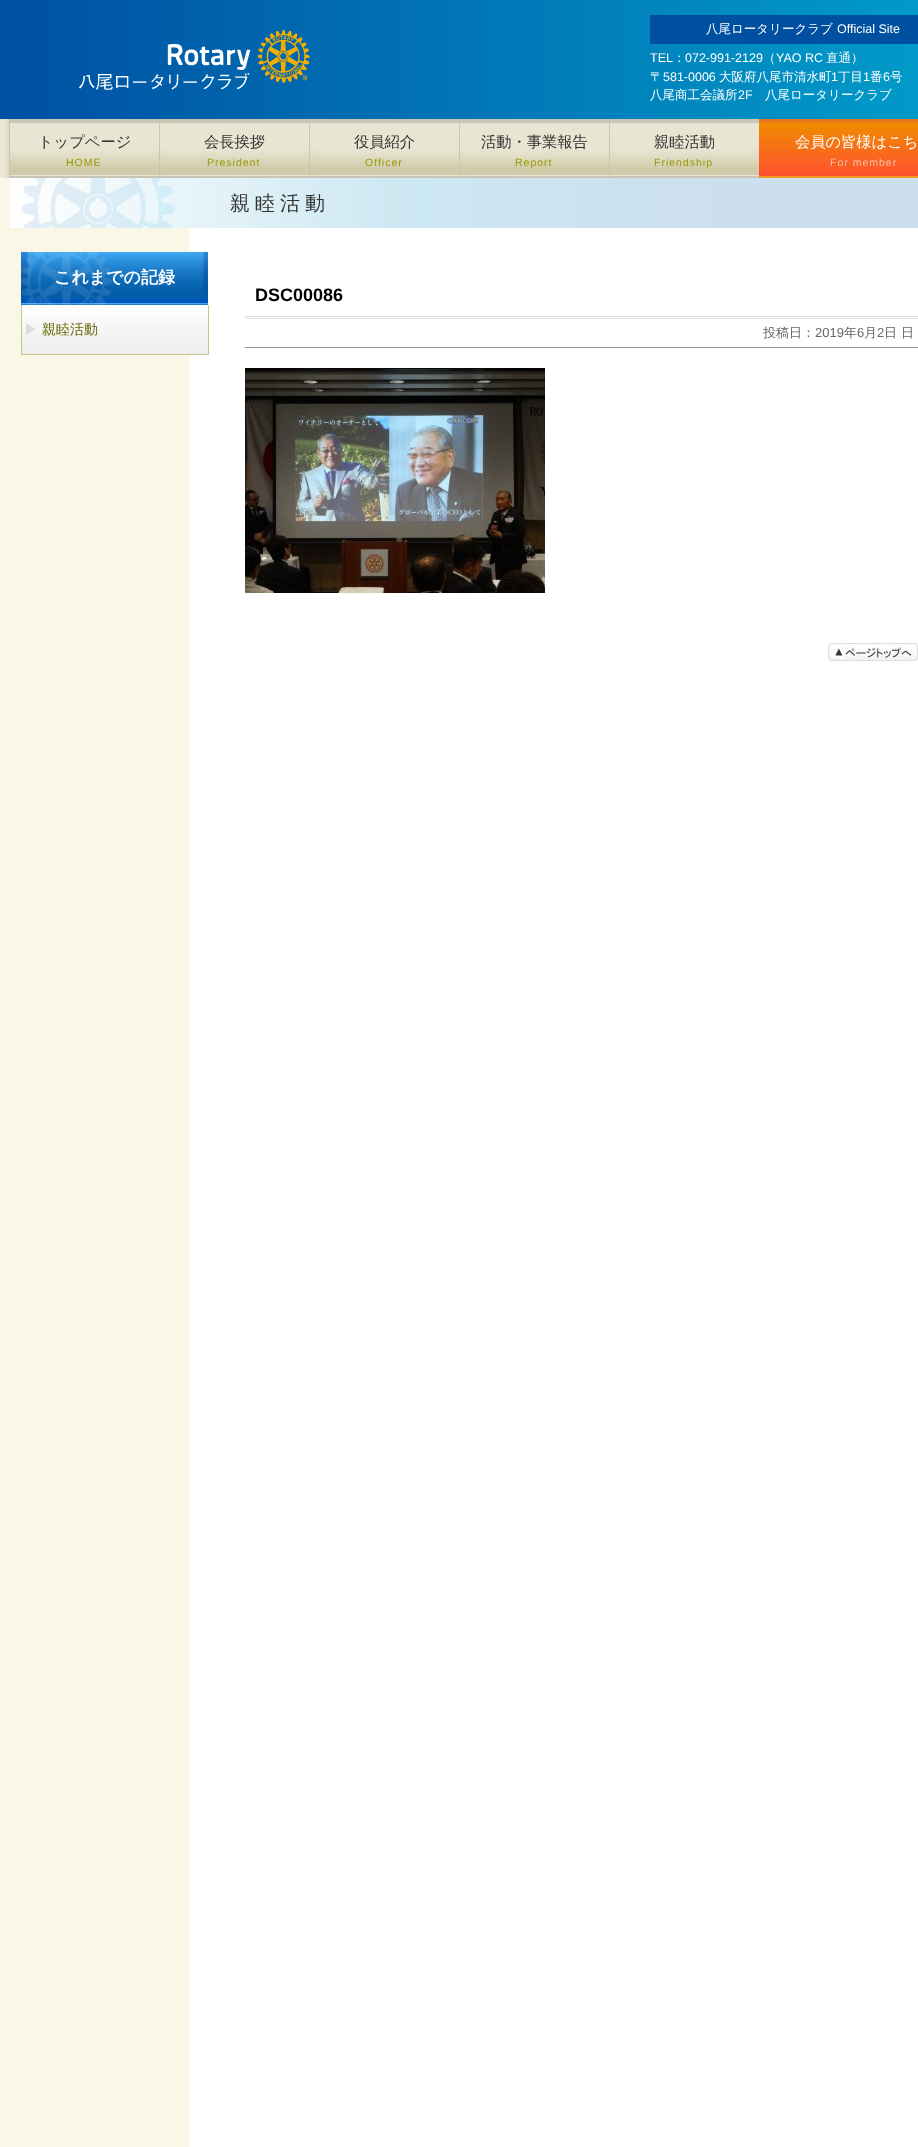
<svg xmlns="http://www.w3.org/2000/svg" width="918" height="2147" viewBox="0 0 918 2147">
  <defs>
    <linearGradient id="g1" gradientUnits="userSpaceOnUse" x1="0" y1="59" x2="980" y2="59"><stop offset="0" stop-color="#0050a2"/><stop offset="1" stop-color="#019fcb"/></linearGradient>
    <linearGradient id="g2" gradientUnits="userSpaceOnUse" x1="864" y1="119" x2="864" y2="176"><stop offset="0.04" stop-color="#ea731e"/><stop offset="0.08" stop-color="#ef8b00"/><stop offset="1" stop-color="#ff512f"/></linearGradient>
    <linearGradient id="g3" gradientUnits="userSpaceOnUse" x1="115" y1="305" x2="115" y2="354"><stop offset="0" stop-color="#fff"/><stop offset="0.47" stop-color="#f6f6f6"/><stop offset="1" stop-color="#ededed"/></linearGradient>
  </defs>
  <rect width="100%" height="100%" fill="#fff"/>
  <path d="M0 178h189v1969H0z" fill="#faf7e6"/>
  <path d="M0 0h918v119H0z" fill="url(#g1)"/>
  <image x="79" y="30" width="231" height="60" href="img/1.png"/>
  <path d="M650 15h268v29H650z" fill="#0050a2"/>
  <image x="0" y="119" width="9" height="59" href="img/2.png"/>
  <image x="9" y="119" width="150" height="59" href="img/3.png"/>
  <image x="159" y="119" width="150" height="59" href="img/3.png"/>
  <image x="309" y="119" width="150" height="59" href="img/3.png"/>
  <image x="459" y="119" width="150" height="59" href="img/3.png"/>
  <image x="609" y="119" width="150" height="59" href="img/3.png"/>
  <path d="M759 119h159v57H759z" fill="url(#g2)"/>
  <path d="M759 176h159v2H759z" fill="#f09819"/>
  <image x="10" y="178" width="908" height="50" href="img/4.png"/>
  <image x="21" y="251" width="187" height="54" href="img/5.png"/>
  <path d="M22 305h186v49H22z" fill="url(#g3)"/>
  <path d="M208 305h1v50H208z" fill="#c7c491"/>
  <path d="M21 354h188v1H21z" fill="#c7c491"/>
  <path d="M21 305h1v50H21z" fill="#c7c491"/>
  <path d="M26 335V323L35 329Z" fill="#ddd"/>
  <path d="M245 316h673v1H245z" fill="#ddd"/>
  <path d="M245 318h673v1H245z" fill="#ddd"/>
  <path d="M245 347h673v1H245z" fill="#999"/>
  <image x="245" y="368" width="300" height="225" href="img/6.png"/>
  <image x="828" y="643" width="90" height="18" href="img/7.png"/>
  <text x="706" y="33" font-family="WenQuanYi Zen Hei" font-size="12.5" font-weight="500" fill="#fff">八尾ロータリークラブ</text>
  <g font-family="Liberation Sans" font-size="12.5" fill="#fff">
    <text x="837" y="33">Official Site</text>
    <text x="650" y="62">TEL</text>
  </g>
  <text x="673" y="62" font-family="WenQuanYi Zen Hei" font-size="12.5" font-weight="500" fill="#fff">：</text>
  <text x="685" y="62" font-family="Liberation Sans" font-size="12.5" fill="#fff">072-991-2129</text>
  <text x="763" y="62" font-family="WenQuanYi Zen Hei" font-size="12.5" font-weight="500" fill="#fff">（</text>
  <text x="776" y="62" font-family="Liberation Sans" font-size="12.5" fill="#fff">YAO RC</text>
  <g font-family="WenQuanYi Zen Hei" font-size="12.5" font-weight="500" fill="#fff">
    <text x="826" y="62">直通）</text>
    <text x="650" y="81">〒</text>
  </g>
  <text x="663" y="81" font-family="Liberation Sans" font-size="12.5" fill="#fff">581-0006</text>
  <text x="719" y="81" font-family="WenQuanYi Zen Hei" font-size="12.5" font-weight="500" fill="#fff">大阪府八尾市清水町</text>
  <text x="831" y="81" font-family="Liberation Sans" font-size="12.5" fill="#fff">1</text>
  <text x="838" y="81" font-family="WenQuanYi Zen Hei" font-size="12.5" font-weight="500" fill="#fff">丁目</text>
  <text x="863" y="81" font-family="Liberation Sans" font-size="12.5" fill="#fff">1</text>
  <text x="870" y="81" font-family="WenQuanYi Zen Hei" font-size="12.5" font-weight="500" fill="#fff">番</text>
  <text x="883" y="81" font-family="Liberation Sans" font-size="12.5" fill="#fff">6</text>
  <g font-family="WenQuanYi Zen Hei" font-size="12.5" font-weight="500" fill="#fff">
    <text x="890" y="81">号</text>
    <text x="650" y="99">八尾商工会議所</text>
  </g>
  <text x="738" y="99" font-family="Liberation Sans" font-size="12.5" fill="#fff">2F</text>
  <text x="765" y="99" font-family="WenQuanYi Zen Hei" font-size="12.5" font-weight="500" fill="#fff">八尾ロータリークラブ</text>
  <text x="38" y="147" font-family="WenQuanYi Zen Hei" font-size="15.25" font-weight="500" fill="#333">トップページ</text>
  <text x="66" y="166" font-family="Liberation Sans" font-size="10.5" letter-spacing="1" fill="#990">HOME</text>
  <text x="204" y="147" font-family="WenQuanYi Zen Hei" font-size="15.25" font-weight="500" fill="#333">会長挨拶</text>
  <text x="207" y="166" font-family="Liberation Sans" font-size="10.5" letter-spacing="1" fill="#990">President</text>
  <text x="354" y="147" font-family="WenQuanYi Zen Hei" font-size="15.25" font-weight="500" fill="#333">役員紹介</text>
  <text x="365" y="166" font-family="Liberation Sans" font-size="10.5" letter-spacing="1" fill="#990">Officer</text>
  <text x="481" y="147" font-family="WenQuanYi Zen Hei" font-size="15.25" font-weight="500" fill="#333">活動・事業報告</text>
  <text x="515" y="166" font-family="Liberation Sans" font-size="10.5" letter-spacing="1" fill="#990">Report</text>
  <text x="654" y="147" font-family="WenQuanYi Zen Hei" font-size="15.25" font-weight="500" fill="#333">親睦活動</text>
  <text x="654" y="166" font-family="Liberation Sans" font-size="10.5" letter-spacing="1" fill="#990">Friendship</text>
  <text x="795" y="147" font-family="WenQuanYi Zen Hei" font-size="15.25" font-weight="500" fill="#fff">会員の皆様はこち</text>
  <text x="830" y="166" font-family="Liberation Sans" font-size="10.5" letter-spacing="1" fill="#fdbfa7">For member</text>
  <text x="230" y="210" font-family="WenQuanYi Zen Hei" font-size="20" font-weight="500" letter-spacing="5" fill="#333">親睦活動</text>
  <text x="54" y="283" font-family="WenQuanYi Zen Hei" font-size="17" font-weight="bold" fill="#fff">これまでの記録</text>
  <text x="42" y="334" font-family="WenQuanYi Zen Hei" font-size="14" font-weight="500" fill="#660">親睦活動</text>
  <text x="255" y="301" font-family="Liberation Sans" font-size="18" font-weight="bold" fill="#000">DSC00086</text>
  <text x="763" y="337" font-family="WenQuanYi Zen Hei" font-size="13" font-weight="500" fill="#666">投稿日：</text>
  <text x="815" y="337" font-family="Liberation Sans" font-size="13" fill="#666">2019</text>
  <text x="844" y="337" font-family="WenQuanYi Zen Hei" font-size="13" font-weight="500" fill="#666">年</text>
  <text x="857" y="337" font-family="Liberation Sans" font-size="13" fill="#666">6</text>
  <text x="864" y="337" font-family="WenQuanYi Zen Hei" font-size="13" font-weight="500" fill="#666">月</text>
  <text x="877" y="337" font-family="Liberation Sans" font-size="13" fill="#666">2</text>
  <text x="884" y="337" font-family="WenQuanYi Zen Hei" font-size="13" font-weight="500" fill="#666">日 日</text>
</svg>
